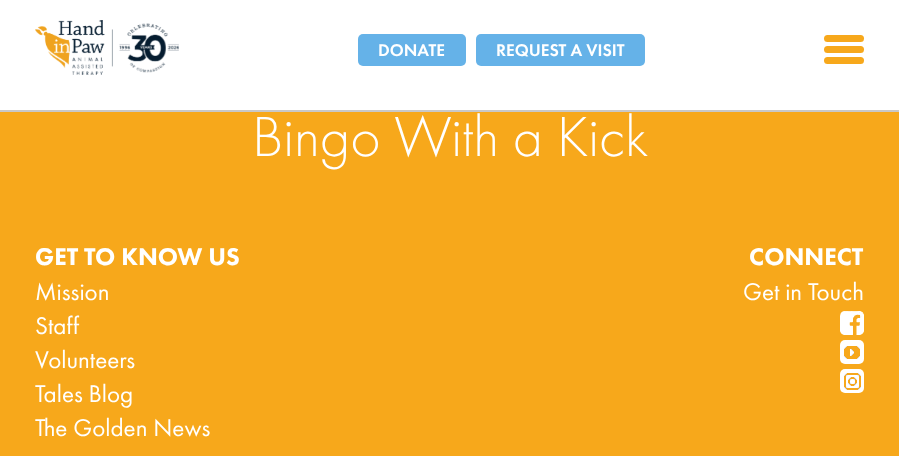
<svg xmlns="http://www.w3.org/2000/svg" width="899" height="456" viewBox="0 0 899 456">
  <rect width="100%" height="100%" fill="#f7a81b"/>
  <path d="M0 0h899v110H0z" fill="#fff"/>
  <path d="M0 110h899v2H0z" fill="#c9c8c8"/>
  <image x="35" y="20" width="144" height="55" href="img/1.png"/>
  <rect x="358" y="34" width="108" height="32" rx="5" fill="#65b2e8"/>
  <rect x="476" y="34" width="169" height="32" rx="5" fill="#65b2e8"/>
  <rect x="824" y="46" width="40" height="7" rx="3.5" fill="#f7a81b"/>
  <rect x="824" y="35" width="40" height="7" rx="3.5" fill="#f7a81b"/>
  <rect x="824" y="57" width="40" height="7" rx="3.5" fill="#f7a81b"/>
  <image x="840" y="311" width="24" height="24" href="img/2.png"/>
  <image x="840" y="340" width="24" height="24" href="img/3.png"/>
  <image x="840" y="369" width="24" height="24" href="img/4.png"/>
  <g font-family="Futura PT" font-size="17.5" font-weight="500" fill="#fff">
    <text x="378" y="56">DONATE</text>
    <text x="496" y="56">REQUEST A VISIT</text>
  </g>
  <text x="252" y="156" font-family="Futura PT" font-size="58.5" font-weight="300" fill="#fff">Bingo With a Kick</text>
  <text x="35" y="265" font-family="Futura PT" font-size="25" font-weight="900" fill="#fff">GET TO KNOW US</text>
  <g font-family="Futura PT" font-size="25" fill="#fff">
    <text x="35" y="300">Mission</text>
    <text x="35" y="334">Staff</text>
    <text x="35" y="368">Volunteers</text>
    <text x="35" y="402">Tales Blog</text>
    <text x="35" y="436">The Golden News</text>
  </g>
  <text x="749" y="265" font-family="Futura PT" font-size="25" font-weight="900" fill="#fff">CONNECT</text>
  <text x="743" y="300" font-family="Futura PT" font-size="25" fill="#fff">Get in Touch</text>
</svg>
